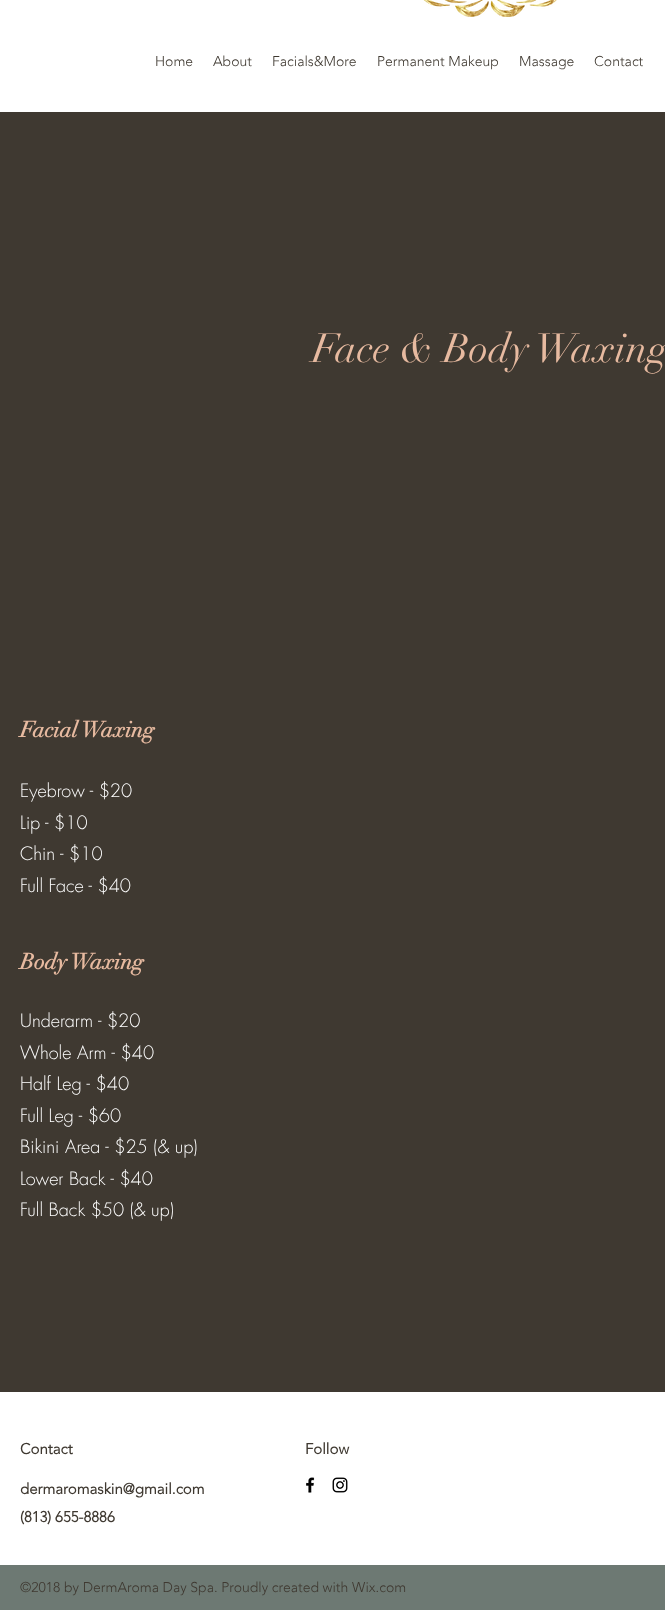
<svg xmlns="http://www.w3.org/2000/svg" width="665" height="1612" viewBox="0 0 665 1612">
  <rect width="100%" height="100%" fill="#fff"/>
  <image x="423" y="0" width="134" height="17" href="img/1.png"/>
  <path d="M0 112h665v1280H0z" fill="#3f3931"/>
  <image x="306" y="1477" width="9" height="16" href="img/2.png"/>
  <image x="332" y="1477" width="16" height="16" href="img/3.png"/>
  <path d="M0 1565h665v45H0z" fill="#6d7973"/>
  <g font-family="'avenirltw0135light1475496'" font-size="14" font-weight="300" fill="#3f3931">
    <text x="155" y="66">Home</text>
    <text x="213" y="66">About</text>
    <text x="272" y="66">Facials&amp;More</text>
    <text x="377" y="66">Permanent Makeup</text>
    <text x="519" y="66">Massage</text>
    <text x="594" y="66">Contact</text>
  </g>
  <text x="312" y="362" font-family="didot" font-size="40" fill="#e7baa0">Face &amp; Body Waxing</text>
  <text x="20" y="737" font-family="didot" font-size="22" font-weight="bold" fill="#e7baa0">Facial Waxing</text>
  <g font-family="futura" font-size="18" font-weight="300" fill="#fff">
    <text x="20" y="797">Eyebrow - $20</text>
    <text x="20" y="829">Lip - $10</text>
    <text x="20" y="860">Chin - $10</text>
    <text x="20" y="892">Full Face - $40</text>
  </g>
  <text x="20" y="969" font-family="didot" font-size="22" font-weight="bold" fill="#e7baa0">Body Waxing</text>
  <g font-family="futura" font-size="18" font-weight="300" fill="#fff">
    <text x="20" y="1027">Underarm - $20</text>
    <text x="20" y="1059">Whole Arm - $40</text>
    <text x="20" y="1090">Half Leg - $40</text>
    <text x="20" y="1122">Full Leg - $60</text>
    <text x="20" y="1153">Bikini Area - $25 (&amp; up)</text>
    <text x="20" y="1185">Lower Back - $40</text>
    <text x="20" y="1216">Full Back $50 (&amp; up)</text>
  </g>
  <g font-family="'avenirltw0135light1475496'" font-size="15" font-weight="bold" fill="#3f3931">
    <text x="20" y="1454">Contact</text>
    <text x="305" y="1454">Follow</text>
    <text x="20" y="1494">dermaromaskin@gmail.com</text>
    <text x="20" y="1522">(813) 655-8886</text>
  </g>
  <text x="20" y="1592" font-family="'avenirltw0135light1475496'" font-size="14" font-weight="300" fill="#3f3931">©2018 by DermAroma Day Spa. Proudly created with Wix.com</text>
</svg>
